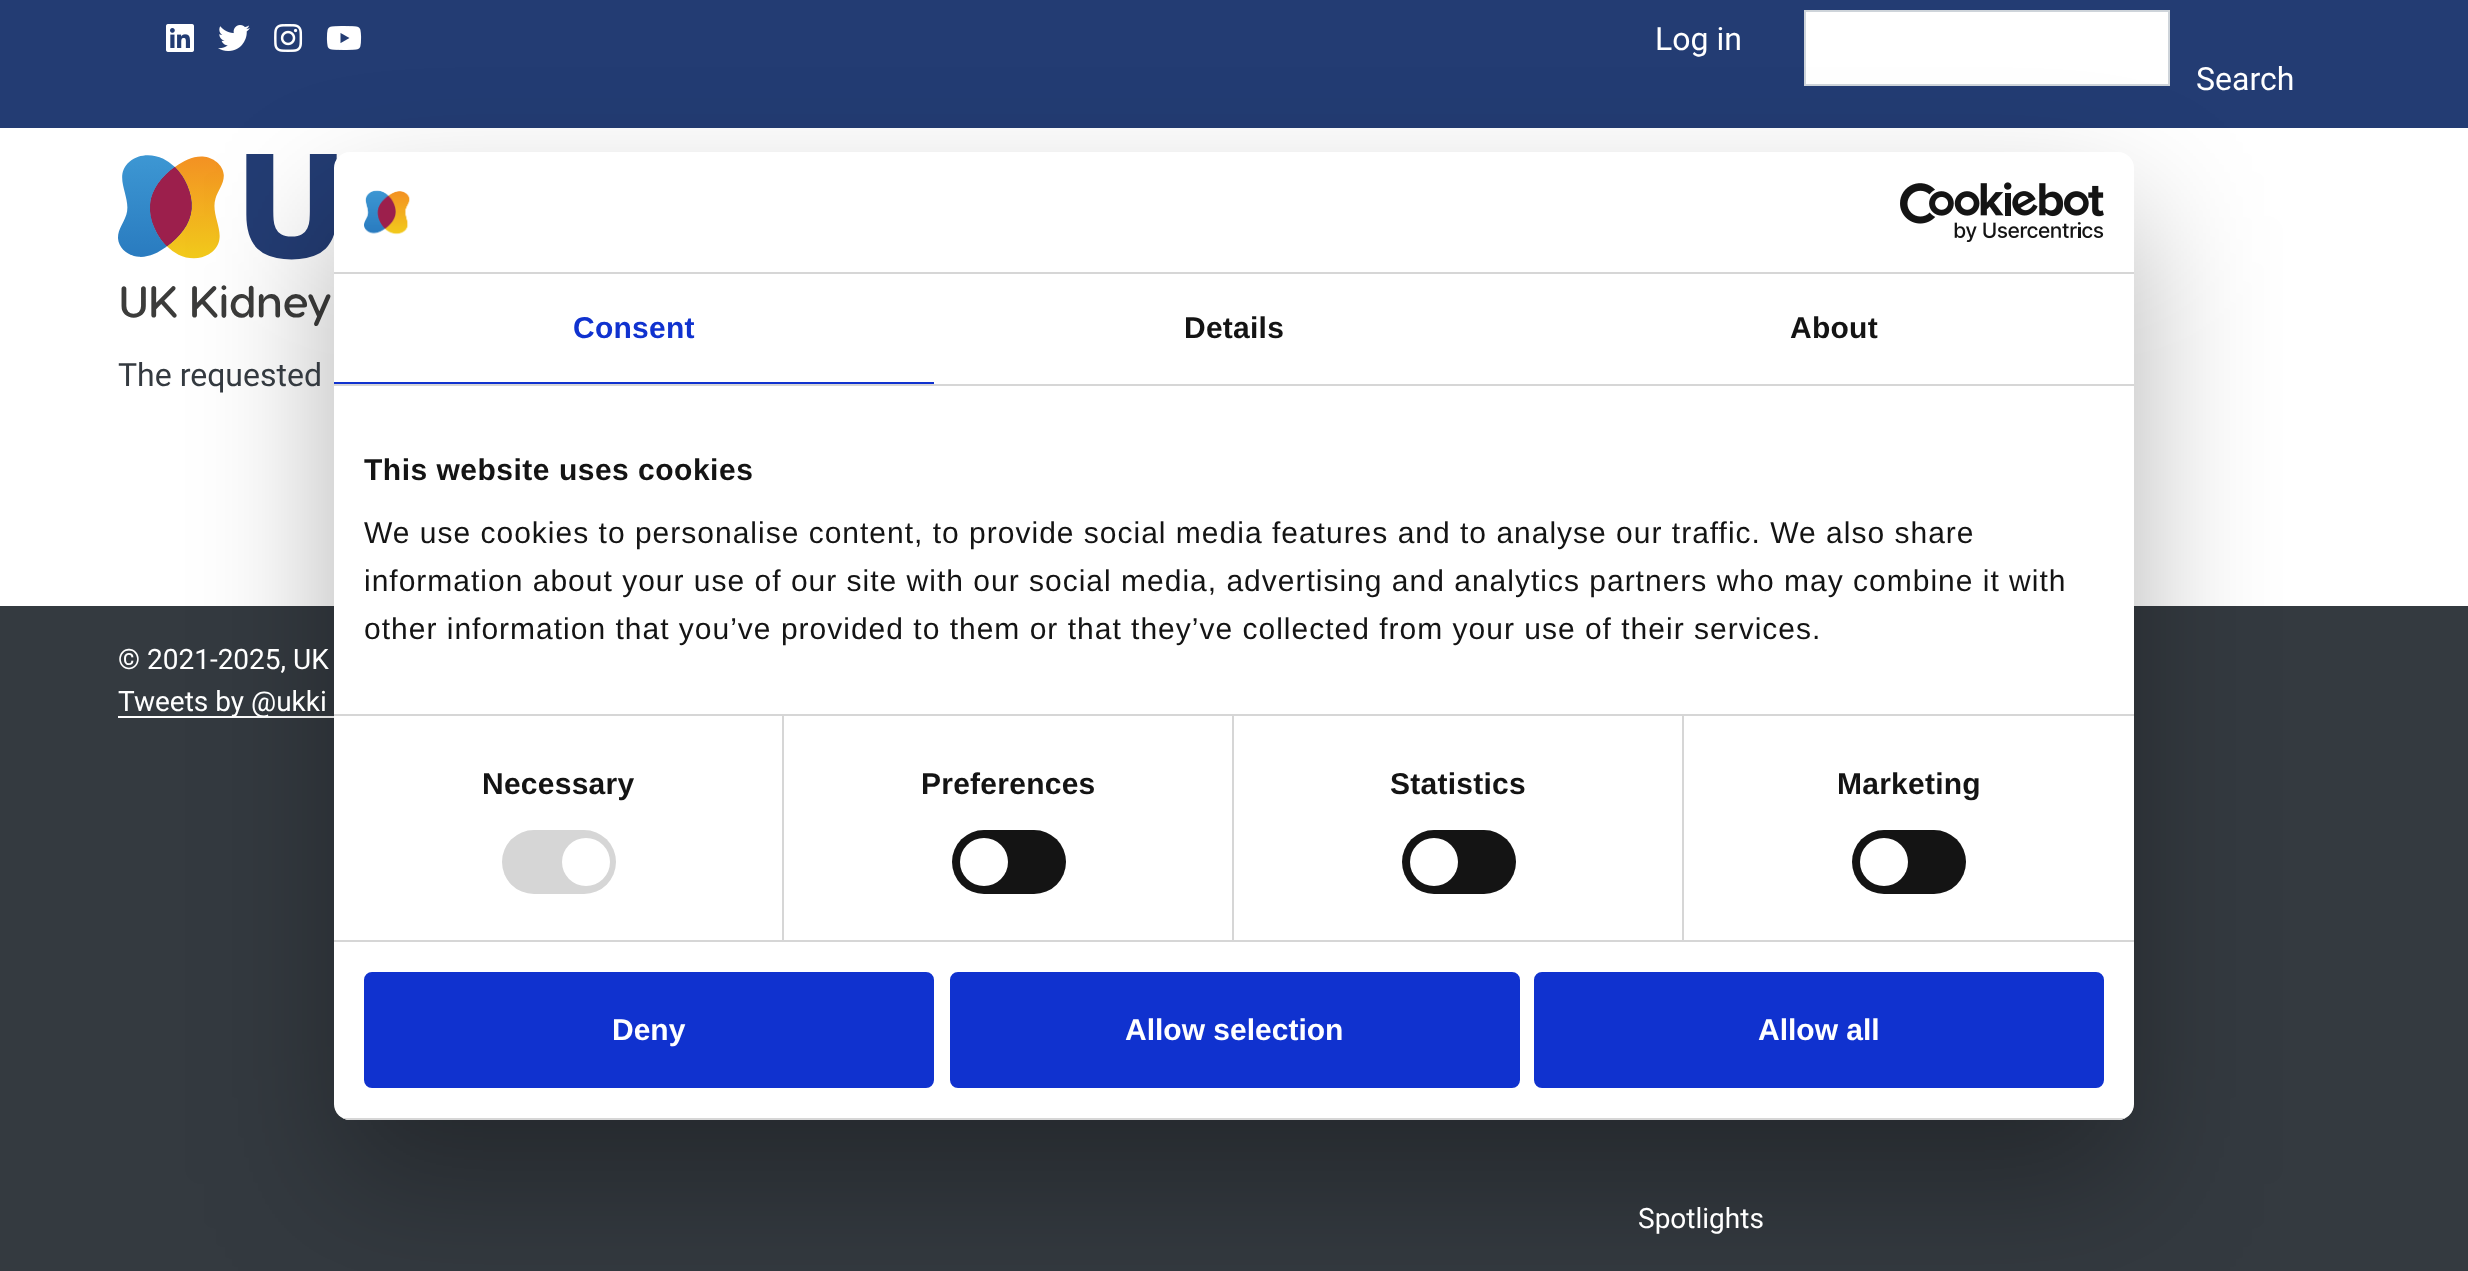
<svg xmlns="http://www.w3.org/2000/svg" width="2468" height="1271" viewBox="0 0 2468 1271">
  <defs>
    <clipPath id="clip1"><rect x="334" y="152" width="1800" height="968" rx="16"/></clipPath>
  </defs>
  <rect width="100%" height="100%" fill="#fff"/>
  <path d="M0 0h2468v128H0z" fill="#233c73"/>
  <image x="166" y="24" width="28" height="28" href="img/1.png"/>
  <image x="218" y="25" width="32" height="26" href="img/2.png"/>
  <image x="274" y="24" width="29" height="28" href="img/3.png"/>
  <image x="326" y="26" width="36" height="24" href="img/4.png"/>
  <path d="M1805 11h364v74H1805z" fill="#fff" stroke="#ced4da" stroke-width="2"/>
  <image x="118" y="154" width="219" height="172" href="img/5.png"/>
  <path d="M0 606h2468v665H0z" fill="#343a40"/>
  <path d="M118 716h216v2H118z" fill="#fff"/>
  <rect x="334" y="216" width="1800" height="968" rx="16" fill="#0000004d" filter="blur(68px)"/>
  <rect x="334" y="152" width="1800" height="968" rx="16" fill="#fff"/>
  <path d="M334 272h1800v2H334z" fill="#d6d6d6"/>
  <image x="364" y="190" width="46" height="45" href="img/6.png"/>
  <image x="1900" y="182" width="204" height="60" href="img/7.png"/>
  <path d="M334 384h1800v2H334z" fill="#d6d6d6"/>
  <path d="M334 382h600v2H334z" fill="#1032cf"/>
  <path d="M334 714h1800v2H334z" fill="#d6d6d6"/>
  <path d="M334 940h1800v2H334z" fill="#d6d6d6"/>
  <path d="M782 716h2v224H782z" fill="#d6d6d6"/>
  <rect x="502" y="830" width="114" height="64" rx="32" fill="#d6d6d6"/>
  <circle cx="586" cy="862" r="24" fill="#fff"/>
  <path d="M1232 716h2v224H1232z" fill="#d6d6d6"/>
  <rect x="952" y="830" width="114" height="64" rx="32" fill="#141414"/>
  <circle cx="984" cy="862" r="24" fill="#fff"/>
  <path d="M1682 716h2v224H1682z" fill="#d6d6d6"/>
  <rect x="1402" y="830" width="114" height="64" rx="32" fill="#141414"/>
  <circle cx="1434" cy="862" r="24" fill="#fff"/>
  <rect x="1852" y="830" width="114" height="64" rx="32" fill="#141414"/>
  <circle cx="1884" cy="862" r="24" fill="#fff"/>
  <g clip-path="url(#clip1)">
    <path d="M334 1118h1800v2H334z" fill="#d6d6d6"/>
  </g>
  <rect x="366" y="974" width="566" height="112" rx="6" fill="#1032cf" stroke="#1032cf" stroke-width="4"/>
  <rect x="952" y="974" width="566" height="112" rx="6" fill="#1032cf" stroke="#1032cf" stroke-width="4"/>
  <rect x="1536" y="974" width="566" height="112" rx="6" fill="#1032cf" stroke="#1032cf" stroke-width="4"/>
  <g font-family="Roboto" font-size="32" fill="#fff">
    <text x="1655" y="50">Log in</text>
    <text x="2196" y="90">Search</text>
  </g>
  <text x="118" y="386" font-family="Roboto" font-size="32" fill="#343a40">The requested</text>
  <g font-family="Roboto" font-size="28" fill="#fff">
    <text x="118" y="669">© 2021-2025, UK</text>
    <text x="118" y="711">Tweets by @ukki</text>
    <text x="1638" y="1228">Spotlights</text>
  </g>
  <text x="573" y="338" font-family="Liberation Sans" font-size="30" font-weight="bold" letter-spacing="0.25" fill="#1032cf">Consent</text>
  <g font-family="Liberation Sans" font-size="30" font-weight="bold" letter-spacing="0.25" fill="#141414">
    <text x="1184" y="338">Details</text>
    <text x="1790" y="338">About</text>
  </g>
  <text x="364" y="480" font-family="Liberation Sans" font-size="30" font-weight="bold" letter-spacing="0.5" fill="#141414">This website uses cookies</text>
  <g font-family="Liberation Sans" font-size="30" letter-spacing="1" fill="#141414">
    <text x="364" y="543">We use cookies to personalise content, to provide social media features and to analyse our traffic. We also share</text>
    <text x="364" y="591">information about your use of our site with our social media, advertising and analytics partners who may combine it with</text>
    <text x="364" y="639">other information that you’ve provided to them or that they’ve collected from your use of their services.</text>
  </g>
  <g font-family="Liberation Sans" font-size="30" font-weight="bold" letter-spacing="0.25" fill="#141414">
    <text x="482" y="794">Necessary</text>
    <text x="921" y="794">Preferences</text>
    <text x="1390" y="794">Statistics</text>
    <text x="1837" y="794">Marketing</text>
  </g>
  <g font-family="Liberation Sans" font-size="30" font-weight="bold" fill="#fff">
    <text x="612" y="1040">Deny</text>
    <text x="1125" y="1040">Allow selection</text>
    <text x="1758" y="1040">Allow all</text>
  </g>
</svg>
